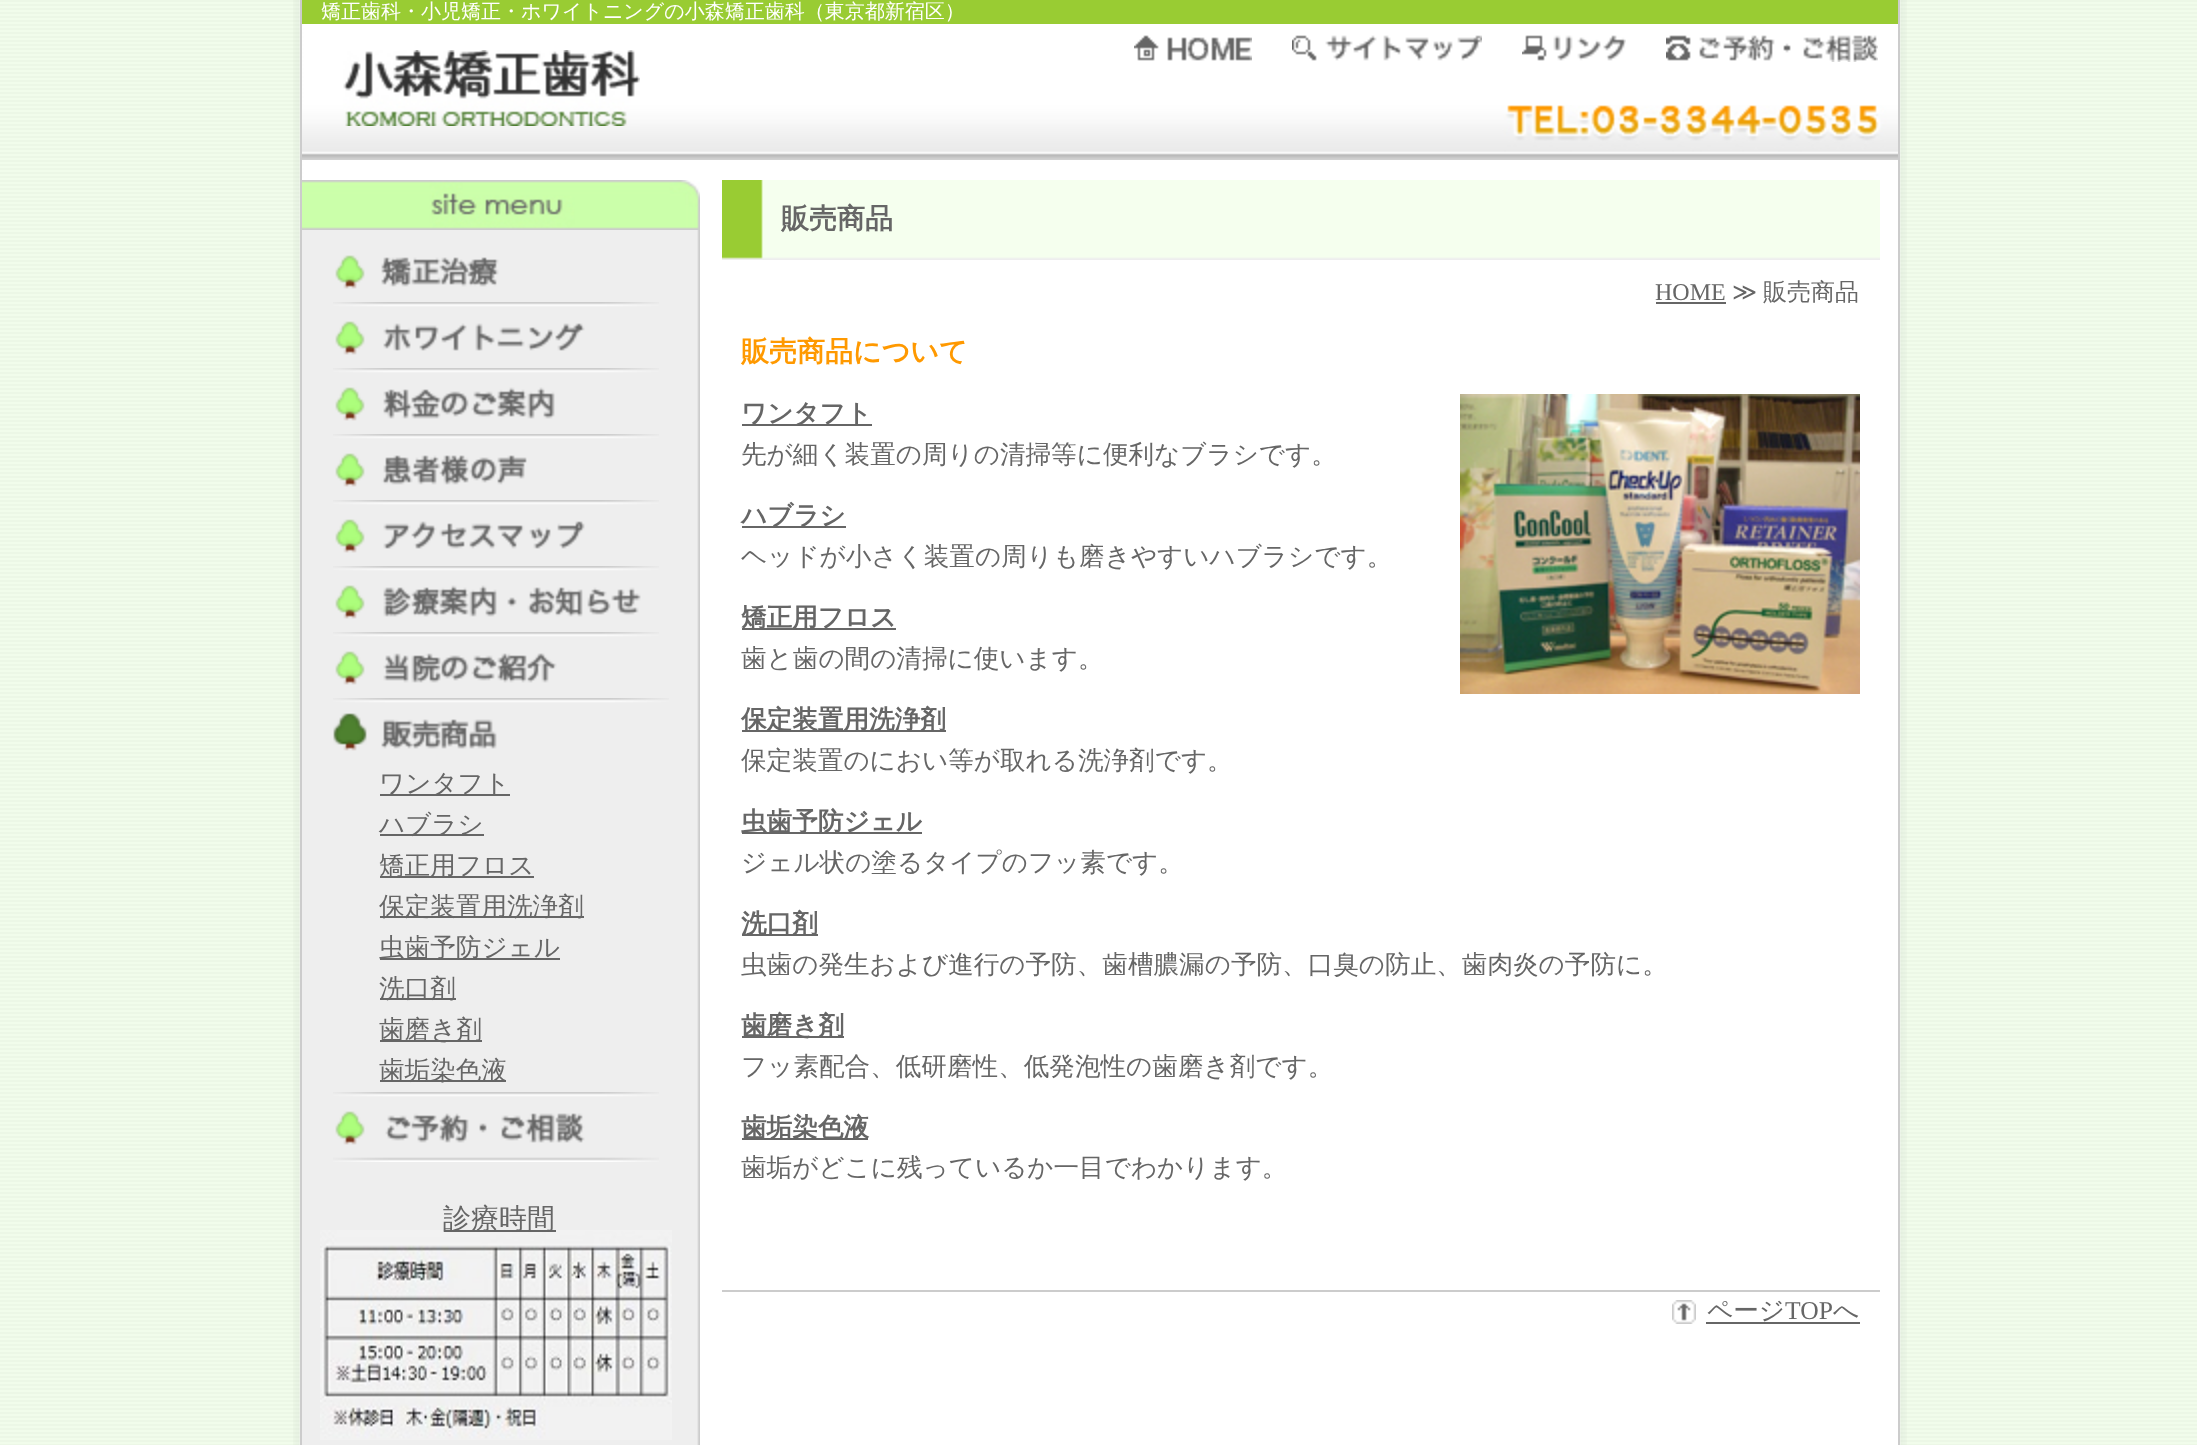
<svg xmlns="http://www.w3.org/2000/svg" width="2197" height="1445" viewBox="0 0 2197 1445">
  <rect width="100%" height="100%" fill="#fff"/>
  <image x="0" y="0" width="2197" height="1445" href="img/1.png"/>
  <image x="293" y="0" width="1614" height="1445" href="img/2.png"/>
  <path d="M1898 0h2v1445H1898z" fill="#ccc"/>
  <path d="M300 0h2v1445H300z" fill="#ccc"/>
  <path d="M302 0h1596v24H302z" fill="#9c3"/>
  <image x="302" y="105" width="1596" height="55" href="img/3.png"/>
  <image x="1134" y="35" width="118" height="26" href="img/4.png"/>
  <image x="1292" y="35" width="190" height="26" href="img/5.png"/>
  <image x="1522" y="35" width="104" height="26" href="img/6.png"/>
  <image x="1666" y="35" width="212" height="27" href="img/7.png"/>
  <image x="343" y="50" width="297" height="76" href="img/8.png"/>
  <image x="302" y="180" width="398" height="50" href="img/9.png"/>
  <image x="302" y="230" width="398" height="1215" href="img/10.png"/>
  <image x="335" y="255" width="164" height="34" href="img/11.png"/>
  <image x="333" y="302" width="326" height="53" href="img/12.png"/>
  <image x="333" y="368" width="326" height="53" href="img/13.png"/>
  <image x="333" y="434" width="326" height="53" href="img/14.png"/>
  <image x="333" y="500" width="326" height="53" href="img/15.png"/>
  <image x="333" y="566" width="326" height="53" href="img/16.png"/>
  <image x="333" y="632" width="326" height="53" href="img/17.png"/>
  <image x="333" y="698" width="336" height="53" href="img/18.png"/>
  <path d="M380 794h130v2H380z" fill="#666"/>
  <path d="M380 834h104v2H380z" fill="#666"/>
  <path d="M380 876h154v2H380z" fill="#666"/>
  <path d="M380 916h204v2H380z" fill="#666"/>
  <path d="M380 958h180v2H380z" fill="#666"/>
  <path d="M380 998h76v2H380z" fill="#666"/>
  <path d="M380 1040h102v2H380z" fill="#666"/>
  <path d="M380 1080h126v2H380z" fill="#666"/>
  <image x="333" y="1092" width="326" height="70" href="img/19.png"/>
  <image x="320" y="1230" width="352" height="210" href="img/20.png"/>
  <path d="M444 1230h112v2H444z" fill="#666"/>
  <image x="722" y="180" width="1158" height="80" href="img/21.png"/>
  <path d="M1656 302h70v2H1656z" fill="#666"/>
  <path d="M742 424h130v2H742z" fill="#666"/>
  <image x="1460" y="394" width="400" height="300" href="img/22.png"/>
  <path d="M742 526h104v2H742z" fill="#666"/>
  <path d="M742 628h154v2H742z" fill="#666"/>
  <path d="M742 730h204v2H742z" fill="#666"/>
  <path d="M742 832h180v2H742z" fill="#666"/>
  <path d="M742 934h76v2H742z" fill="#666"/>
  <path d="M742 1036h102v2H742z" fill="#666"/>
  <path d="M742 1138h126v2H742z" fill="#666"/>
  <path d="M722 1290h1158v2H722z" fill="#ccc"/>
  <image x="1672" y="1300" width="24" height="24" href="img/23.png"/>
  <path d="M1706 1322h154v2H1706z" fill="#666"/>
  <text x="321" y="18" font-family="WenQuanYi Zen Hei" font-size="20" font-weight="500" fill="#fff">矯正歯科・小児矯正・ホワイトニングの小森矯正歯科（東京都新宿区）</text>
  <g font-family="WenQuanYi Zen Hei" font-size="25.6" font-weight="500" fill="#666">
    <text x="379" y="792">ワンタフト</text>
    <text x="379" y="833">ハブラシ</text>
    <text x="379" y="874">矯正用フロス</text>
    <text x="379" y="915">保定装置用洗浄剤</text>
    <text x="379" y="956">虫歯予防ジェル</text>
    <text x="379" y="997">洗口剤</text>
    <text x="379" y="1038">歯磨き剤</text>
    <text x="379" y="1079">歯垢染色液</text>
  </g>
  <text x="443" y="1228" font-family="WenQuanYi Zen Hei" font-size="28" font-weight="500" fill="#666">診療時間</text>
  <text x="781" y="228" font-family="WenQuanYi Zen Hei" font-size="28" font-weight="bold" fill="#666">販売商品</text>
  <text x="1655" y="300" font-family="Liberation Serif" font-size="24" fill="#666">HOME</text>
  <text x="1732" y="300" font-family="DejaVu Sans" font-size="24" fill="#666">≫</text>
  <text x="1763" y="300" font-family="WenQuanYi Zen Hei" font-size="24" font-weight="500" fill="#666">販売商品</text>
  <text x="741" y="361" font-family="WenQuanYi Zen Hei" font-size="28" font-weight="bold" fill="#f90">販売商品について</text>
  <text x="741" y="422" font-family="WenQuanYi Zen Hei" font-size="25.6" font-weight="bold" fill="#666">ワンタフト</text>
  <text x="741" y="463" font-family="WenQuanYi Zen Hei" font-size="25.6" font-weight="500" fill="#666">先が細く装置の周りの清掃等に便利なブラシです。</text>
  <text x="741" y="524" font-family="WenQuanYi Zen Hei" font-size="25.6" font-weight="bold" fill="#666">ハブラシ</text>
  <text x="741" y="565" font-family="WenQuanYi Zen Hei" font-size="25.6" font-weight="500" fill="#666">ヘッドが小さく装置の周りも磨きやすいハブラシです。</text>
  <text x="741" y="626" font-family="WenQuanYi Zen Hei" font-size="25.6" font-weight="bold" fill="#666">矯正用フロス</text>
  <text x="741" y="667" font-family="WenQuanYi Zen Hei" font-size="25.6" font-weight="500" fill="#666">歯と歯の間の清掃に使います。</text>
  <text x="741" y="728" font-family="WenQuanYi Zen Hei" font-size="25.6" font-weight="bold" fill="#666">保定装置用洗浄剤</text>
  <text x="741" y="769" font-family="WenQuanYi Zen Hei" font-size="25.6" font-weight="500" fill="#666">保定装置のにおい等が取れる洗浄剤です。</text>
  <text x="741" y="830" font-family="WenQuanYi Zen Hei" font-size="25.6" font-weight="bold" fill="#666">虫歯予防ジェル</text>
  <text x="741" y="871" font-family="WenQuanYi Zen Hei" font-size="25.6" font-weight="500" fill="#666">ジェル状の塗るタイプのフッ素です。</text>
  <text x="741" y="932" font-family="WenQuanYi Zen Hei" font-size="25.6" font-weight="bold" fill="#666">洗口剤</text>
  <text x="741" y="973" font-family="WenQuanYi Zen Hei" font-size="25.6" font-weight="500" fill="#666">虫歯の発生および進行の予防、歯槽膿漏の予防、口臭の防止、歯肉炎の予防に。</text>
  <text x="741" y="1034" font-family="WenQuanYi Zen Hei" font-size="25.6" font-weight="bold" fill="#666">歯磨き剤</text>
  <text x="741" y="1075" font-family="WenQuanYi Zen Hei" font-size="25.6" font-weight="500" fill="#666">フッ素配合、低研磨性、低発泡性の歯磨き剤です。</text>
  <text x="741" y="1136" font-family="WenQuanYi Zen Hei" font-size="25.6" font-weight="bold" fill="#666">歯垢染色液</text>
  <g font-family="WenQuanYi Zen Hei" font-size="25.6" font-weight="500" fill="#666">
    <text x="741" y="1176">歯垢がどこに残っているか一目でわかります。</text>
    <text x="1707" y="1319">ページ</text>
  </g>
  <text x="1785" y="1319" font-family="Liberation Serif" font-size="25.6" fill="#666">TOP</text>
  <text x="1833" y="1319" font-family="WenQuanYi Zen Hei" font-size="25.6" font-weight="500" fill="#666">へ</text>
</svg>
